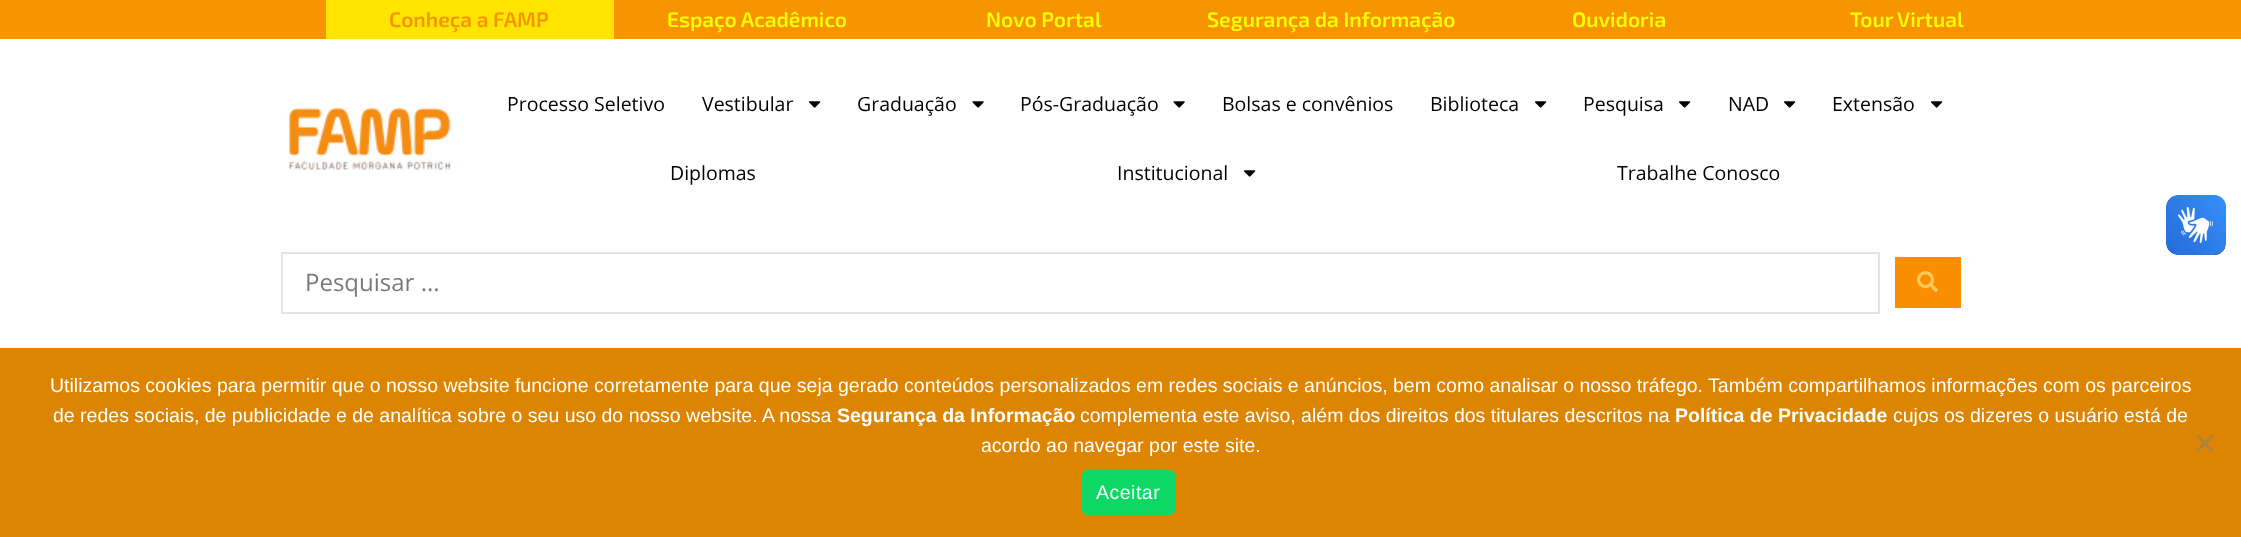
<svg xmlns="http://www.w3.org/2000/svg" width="2241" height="537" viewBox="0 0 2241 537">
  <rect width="100%" height="100%" fill="#fff"/>
  <path d="M0 0h2241v39H0z" fill="#f79500"/>
  <path d="M326 0h288v39H326z" fill="#ffe500"/>
  <image x="289" y="107" width="162" height="63" href="img/1.png"/>
  <image x="809" y="101" width="12" height="7" href="img/2.png"/>
  <image x="972" y="101" width="12" height="7" href="img/3.png"/>
  <image x="1173" y="101" width="12" height="7" href="img/3.png"/>
  <image x="1535" y="101" width="12" height="7" href="img/2.png"/>
  <image x="1679" y="101" width="12" height="7" href="img/2.png"/>
  <image x="1784" y="101" width="12" height="7" href="img/2.png"/>
  <image x="1931" y="101" width="12" height="7" href="img/2.png"/>
  <image x="1244" y="170" width="12" height="7" href="img/2.png"/>
  <path d="M282 253h1597v60H282z" fill="none" stroke="#e1e5eb" stroke-width="2"/>
  <path d="M1895 257h66v51H1895z" fill="#f88e00"/>
  <image x="1917" y="271" width="21" height="22" href="img/4.png"/>
  <image x="2166" y="195" width="60" height="60" href="img/5.png"/>
  <image x="2166" y="195" width="60" height="60" href="img/6.png"/>
  <path d="M0 348h2241v189H0z" fill="#dd8500"/>
  <path d="M2212 434L2214 436.5L2198 452.5L2196 450Z" fill="#af8340"/>
  <path d="M2196 436.5L2198 434L2214 450L2212 452.5Z" fill="#af8340"/>
  <rect x="1082" y="470" width="93" height="45" rx="5" fill="#0dd865"/>
  <text x="389" y="27" font-family="'Exo 2'" font-size="21" font-weight="600" fill="#f79500">Conheça a FAMP</text>
  <g font-family="'Exo 2'" font-size="21" font-weight="600" fill="#fcfc00">
    <text x="667" y="27">Espaço Acadêmico</text>
    <text x="986" y="27">Novo Portal</text>
    <text x="1207" y="27">Segurança da Informação</text>
    <text x="1572" y="27">Ouvidoria</text>
    <text x="1850" y="27">Tour Virtual</text>
  </g>
  <g font-family="Open Sans" font-size="19.5" fill="#000">
    <text x="507" y="111">Processo Seletivo</text>
    <text x="702" y="111">Vestibular</text>
    <text x="857" y="111">Graduação</text>
    <text x="1020" y="111">Pós-Graduação</text>
    <text x="1222" y="111">Bolsas e convênios</text>
    <text x="1430" y="111">Biblioteca</text>
    <text x="1583" y="111">Pesquisa</text>
    <text x="1728" y="111">NAD</text>
    <text x="1832" y="111">Extensão</text>
    <text x="670" y="180">Diplomas</text>
    <text x="1117" y="180">Institucional</text>
    <text x="1617" y="180">Trabalhe Conosco</text>
  </g>
  <text x="305" y="291" font-family="Open Sans" font-size="24" fill="#7a7a7a">Pesquisar ...</text>
  <g font-family="Liberation Sans" font-size="19.5" fill="#fff">
    <text x="50" y="392">Utilizamos cookies para permitir que o nosso website funcione corretamente para que seja gerado conteúdos personalizados em redes sociais e anúncios, bem como analisar o nosso tráfego. Também compartilhamos informações com os parceiros</text>
    <text x="53" y="422">de redes sociais, de publicidade e de analítica sobre o seu uso do nosso website. A nossa</text>
  </g>
  <text x="837" y="422" font-family="Liberation Sans" font-size="19.5" font-weight="bold" fill="#fff">Segurança da Informação</text>
  <text x="1080" y="422" font-family="Liberation Sans" font-size="19.5" fill="#fff">complementa este aviso, além dos direitos dos titulares descritos na</text>
  <text x="1675" y="422" font-family="Liberation Sans" font-size="19.5" font-weight="bold" fill="#fff">Política de Privacidade</text>
  <g font-family="Liberation Sans" font-size="19.5" fill="#fff">
    <text x="1893" y="422">cujos os dizeres o usuário está de</text>
    <text x="981" y="452">acordo ao navegar por este site.</text>
  </g>
  <text x="1096" y="499" font-family="Liberation Sans" font-size="19.5" letter-spacing="0.5" fill="#fff">Aceitar</text>
</svg>
